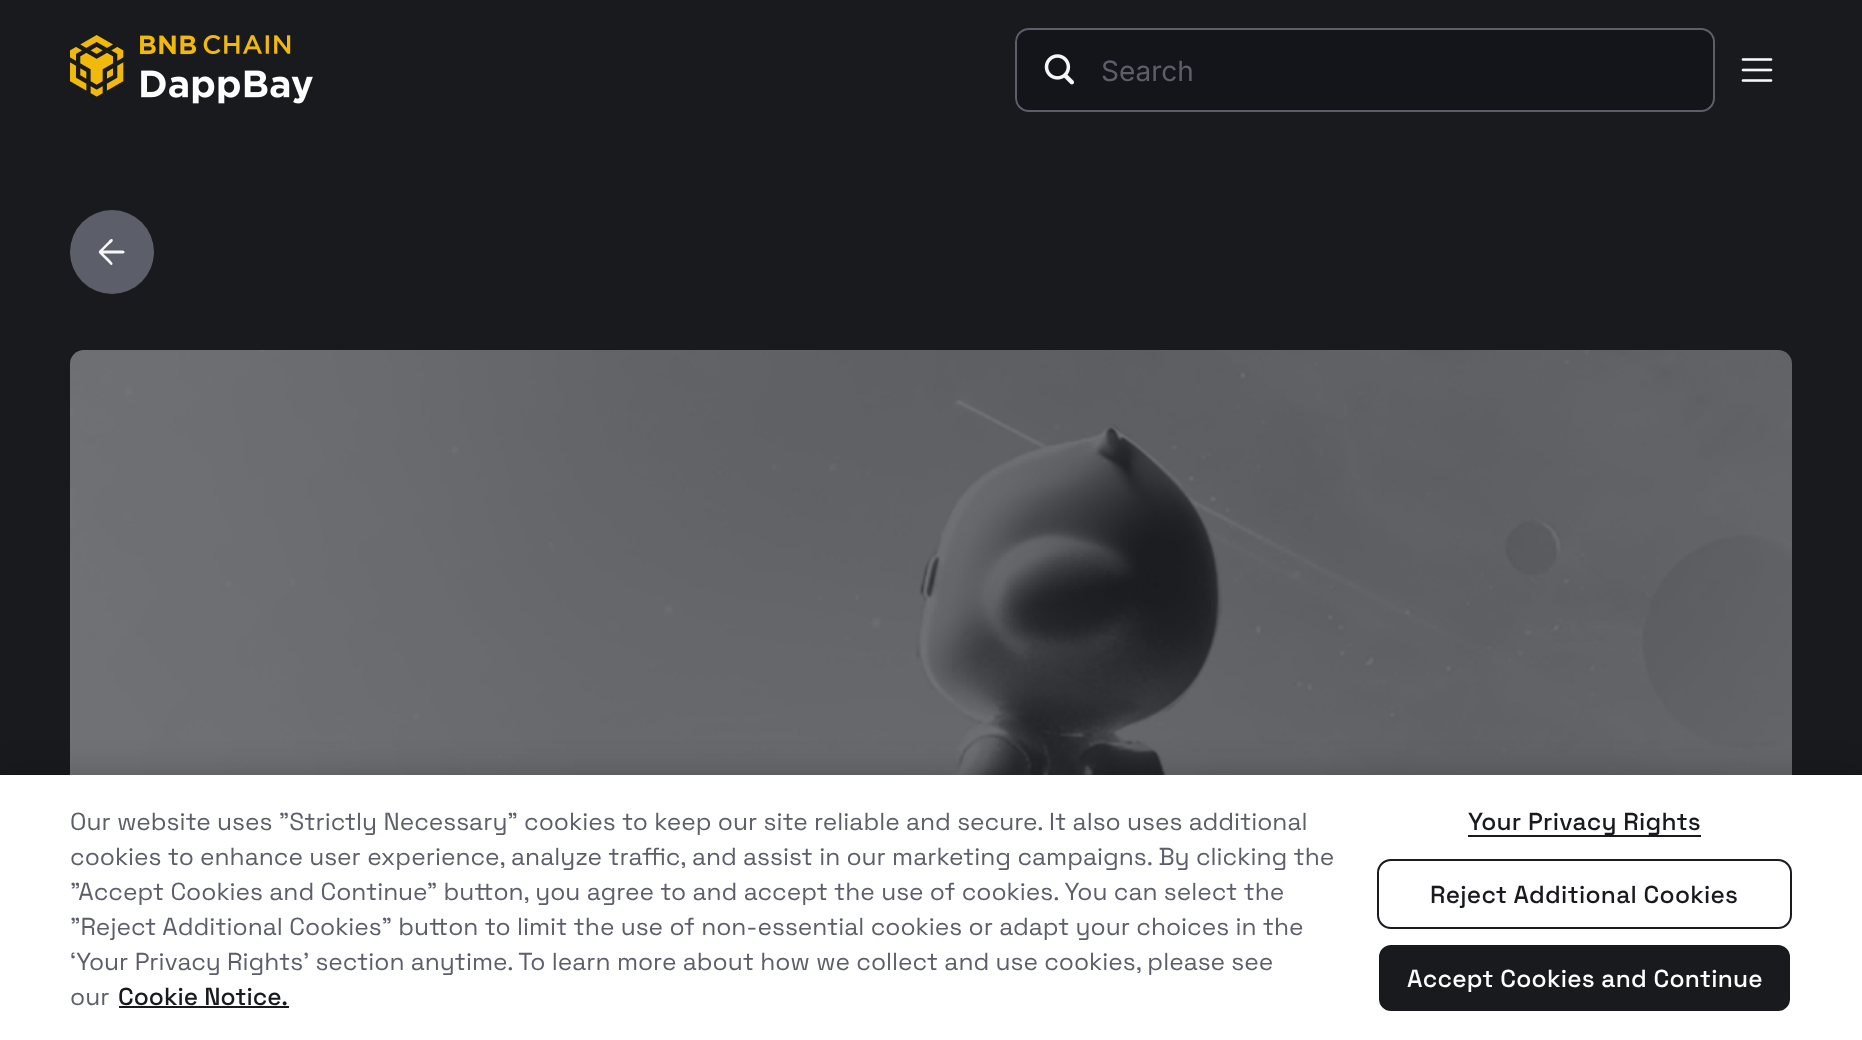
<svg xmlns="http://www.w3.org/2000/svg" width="1862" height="1040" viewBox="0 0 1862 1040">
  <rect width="100%" height="100%" fill="#181a1e"/>
  <image x="70" y="35" width="243" height="69" href="img/1.png"/>
  <rect x="1016" y="29" width="698" height="82" rx="13" fill="#14151a" stroke="#5c5f6a" stroke-width="2"/>
  <image x="1044" y="54" width="30" height="31" href="img/2.png"/>
  <image x="1741" y="58" width="32" height="24" href="img/3.png"/>
  <circle cx="112" cy="252" r="42" fill="#5c5f6a"/>
  <path d="M112.5 239.5C114 241 110 244 109 244.5L103 250.5H120C120.5 250.5 125.5 250 124.5 252.5C124 254 120.5 253.5 120 253.5H103C104.5 254.5 112.5 262 112.5 263.5C112.5 264 112.5 264.5 111.5 265C110.5 265 109 263 108.5 262.5L101 255C98 252 98 252 101 249L108.5 241.5C109 241 111 238 112.5 239.5Z" fill="#f7f7f8"/>
  <image x="70" y="350" width="1722" height="425" href="img/4.png"/>
  <path d="M0 775h1862v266H0z" fill="#00000033" filter="blur(16px)"/>
  <path d="M0 775h1862v265H0z" fill="#fff"/>
  <path d="M119 1006h170v2H119z" fill="#181a1e"/>
  <path d="M1468 835h233v2H1468z" fill="#181a1e"/>
  <rect x="1378" y="860" width="413" height="68" rx="13" fill="none" stroke="#181a1e" stroke-width="2"/>
  <rect x="1378" y="944" width="413" height="68" rx="13" fill="#181a1e" stroke="#fff" stroke-width="2"/>
  <text x="1101" y="81" font-family="Inter" font-size="28" fill="#5c5f6a">Search</text>
  <g font-family="Space Grotesk" font-size="24.5" fill="#5c5f6a">
    <text x="70" y="830">Our website uses "Strictly Necessary" cookies to keep our site reliable and secure. It also uses additional</text>
    <text x="70" y="865">cookies to enhance user experience, analyze traffic, and assist in our marketing campaigns. By clicking the</text>
    <text x="70" y="900">"Accept Cookies and Continue" button, you agree to and accept the use of cookies. You can select the</text>
    <text x="70" y="935">"Reject Additional Cookies" button to limit the use of non-essential cookies or adapt your choices in the</text>
    <text x="70" y="970">‘Your Privacy Rights’ section anytime. To learn more about how we collect and use cookies, please see</text>
    <text x="70" y="1005">our</text>
  </g>
  <text x="118" y="1005" font-family="Space Grotesk" font-size="24.5" font-weight="500" fill="#181a1e">Cookie Notice.</text>
  <g font-family="Space Grotesk" font-size="24.5" font-weight="500" letter-spacing="0.25" fill="#181a1e">
    <text x="1468" y="830">Your Privacy Rights</text>
    <text x="1430" y="903">Reject Additional Cookies</text>
  </g>
  <text x="1407" y="987" font-family="Space Grotesk" font-size="24.5" font-weight="500" letter-spacing="0.25" fill="#fff">Accept Cookies and Continue</text>
</svg>
